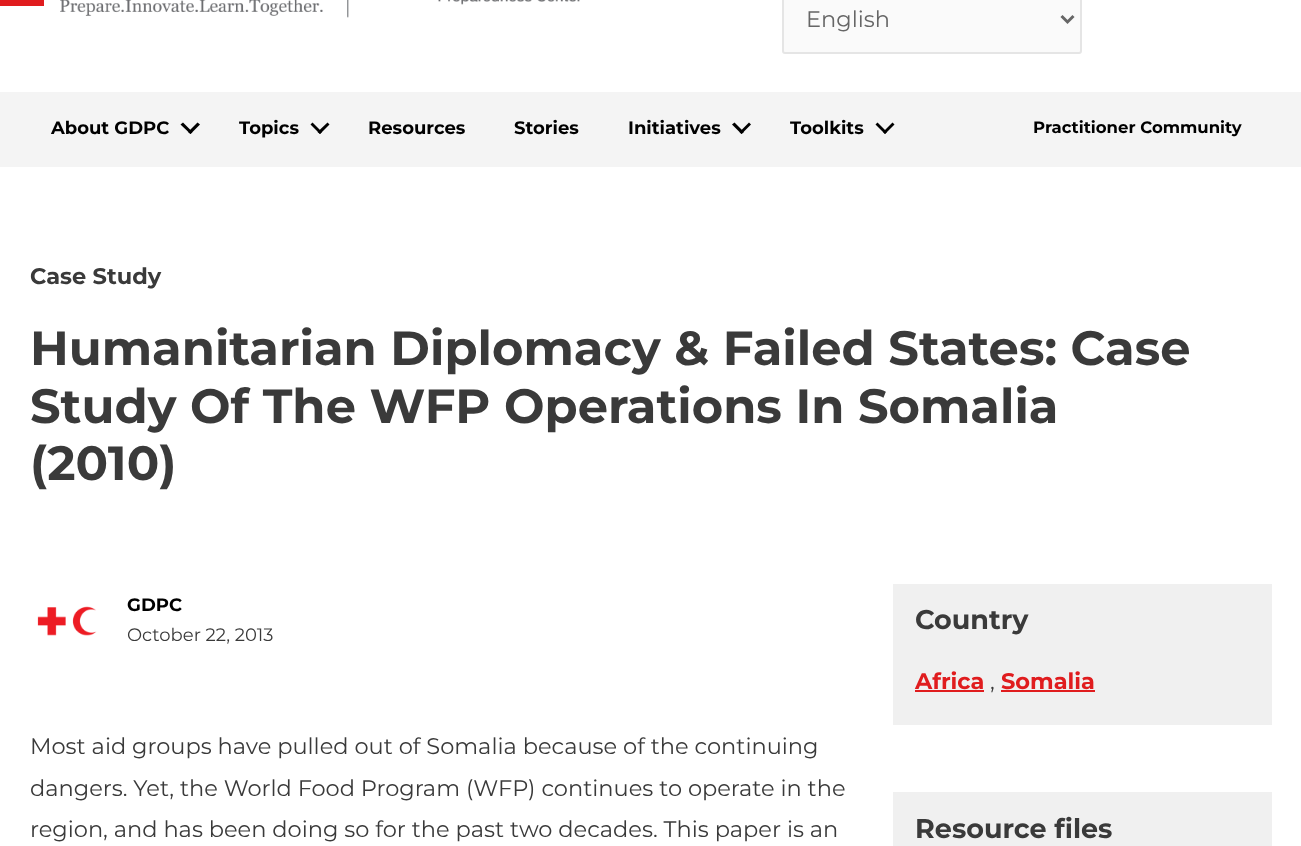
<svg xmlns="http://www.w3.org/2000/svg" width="1301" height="846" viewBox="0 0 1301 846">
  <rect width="100%" height="100%" fill="#fff"/>
  <path d="M0 0h44v6H0z" fill="#e01c1e"/>
  <image x="60" y="0" width="520" height="18" href="img/1.png"/>
  <rect x="783" y="-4" width="298" height="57" rx="2" fill="#fafafa" stroke="#e5e5e5" stroke-width="2"/>
  <path d="M1061.5 16L1067.5 22L1073.5 16" fill="none" stroke="#666" stroke-width="3"/>
  <path d="M0 92h1301v75H0z" fill="#f4f4f4"/>
  <path d="M197.5 122.5L200 124.5L190.5 134L188 132Z" fill="#000"/>
  <path d="M183 122.5L192.5 132L190.5 134L180.5 124.5Z" fill="#000"/>
  <path d="M327.5 122.5L329.5 124.5L320 134L317.5 132Z" fill="#000"/>
  <path d="M312.5 122.5L322 132L320 134L310.5 124.5Z" fill="#000"/>
  <path d="M749 122.5L751 124.5L741.5 134L739.5 132Z" fill="#000"/>
  <path d="M734.5 122.5L744 132L741.5 134L732 124.5Z" fill="#000"/>
  <path d="M892.5 122.5L894.5 124.5L885 134L883 132Z" fill="#000"/>
  <path d="M877.5 122.5L887 132L885 134L875.5 124.5Z" fill="#000"/>
  <image x="37" y="606" width="60" height="30" href="img/2.png"/>
  <path d="M893 584h379v141H893z" fill="#f0f0f0"/>
  <path d="M915 690h69v2H915z" fill="#e01c1e"/>
  <path d="M1001 690h94v2H1001z" fill="#e01c1e"/>
  <path d="M893 792h379v54H893z" fill="#f0f0f0"/>
  <text x="806" y="27" font-family="Montserrat" font-size="22.5" fill="#666">English</text>
  <g font-family="Montserrat" font-size="18" font-weight="bold" fill="#000">
    <text x="51" y="134">About GDPC</text>
    <text x="239" y="134">Topics</text>
    <text x="368" y="134">Resources</text>
    <text x="514" y="134">Stories</text>
    <text x="628" y="134">Initiatives</text>
    <text x="790" y="134">Toolkits</text>
  </g>
  <text x="1033" y="133" font-family="Montserrat" font-size="16.5" font-weight="bold" fill="#000">Practitioner Community</text>
  <text x="30" y="284" font-family="Montserrat" font-size="22.5" font-weight="bold" fill="#3a3a3a">Case Study</text>
  <g font-family="Montserrat" font-size="48" font-weight="bold" fill="#3a3a3a">
    <text x="30" y="365">Humanitarian Diplomacy &amp; Failed States: Case</text>
    <text x="30" y="423">Study Of The WFP Operations In Somalia</text>
    <text x="30" y="480">(2010)</text>
  </g>
  <text x="127" y="611" font-family="Montserrat" font-size="18" font-weight="bold" fill="#000">GDPC</text>
  <text x="127" y="641" font-family="Montserrat" font-size="18" fill="#3a3a3a">October 22, 2013</text>
  <g font-family="Montserrat" font-size="22.5" fill="#3a3a3a">
    <text x="30" y="754">Most aid groups have pulled out of Somalia because of the continuing</text>
    <text x="30" y="796">dangers. Yet, the World Food Program (WFP) continues to operate in the</text>
    <text x="30" y="837">region, and has been doing so for the past two decades. This paper is an</text>
  </g>
  <text x="915" y="629" font-family="Montserrat" font-size="27" font-weight="bold" fill="#3a3a3a">Country</text>
  <text x="915" y="689" font-family="Montserrat" font-size="22.5" font-weight="bold" fill="#e01c1e">Africa</text>
  <text x="990" y="689" font-family="Montserrat" font-size="22.5" fill="#3a3a3a">,</text>
  <text x="1001" y="689" font-family="Montserrat" font-size="22.5" font-weight="bold" fill="#e01c1e">Somalia</text>
  <text x="915" y="838" font-family="Montserrat" font-size="27" font-weight="bold" fill="#3a3a3a">Resource files</text>
</svg>
